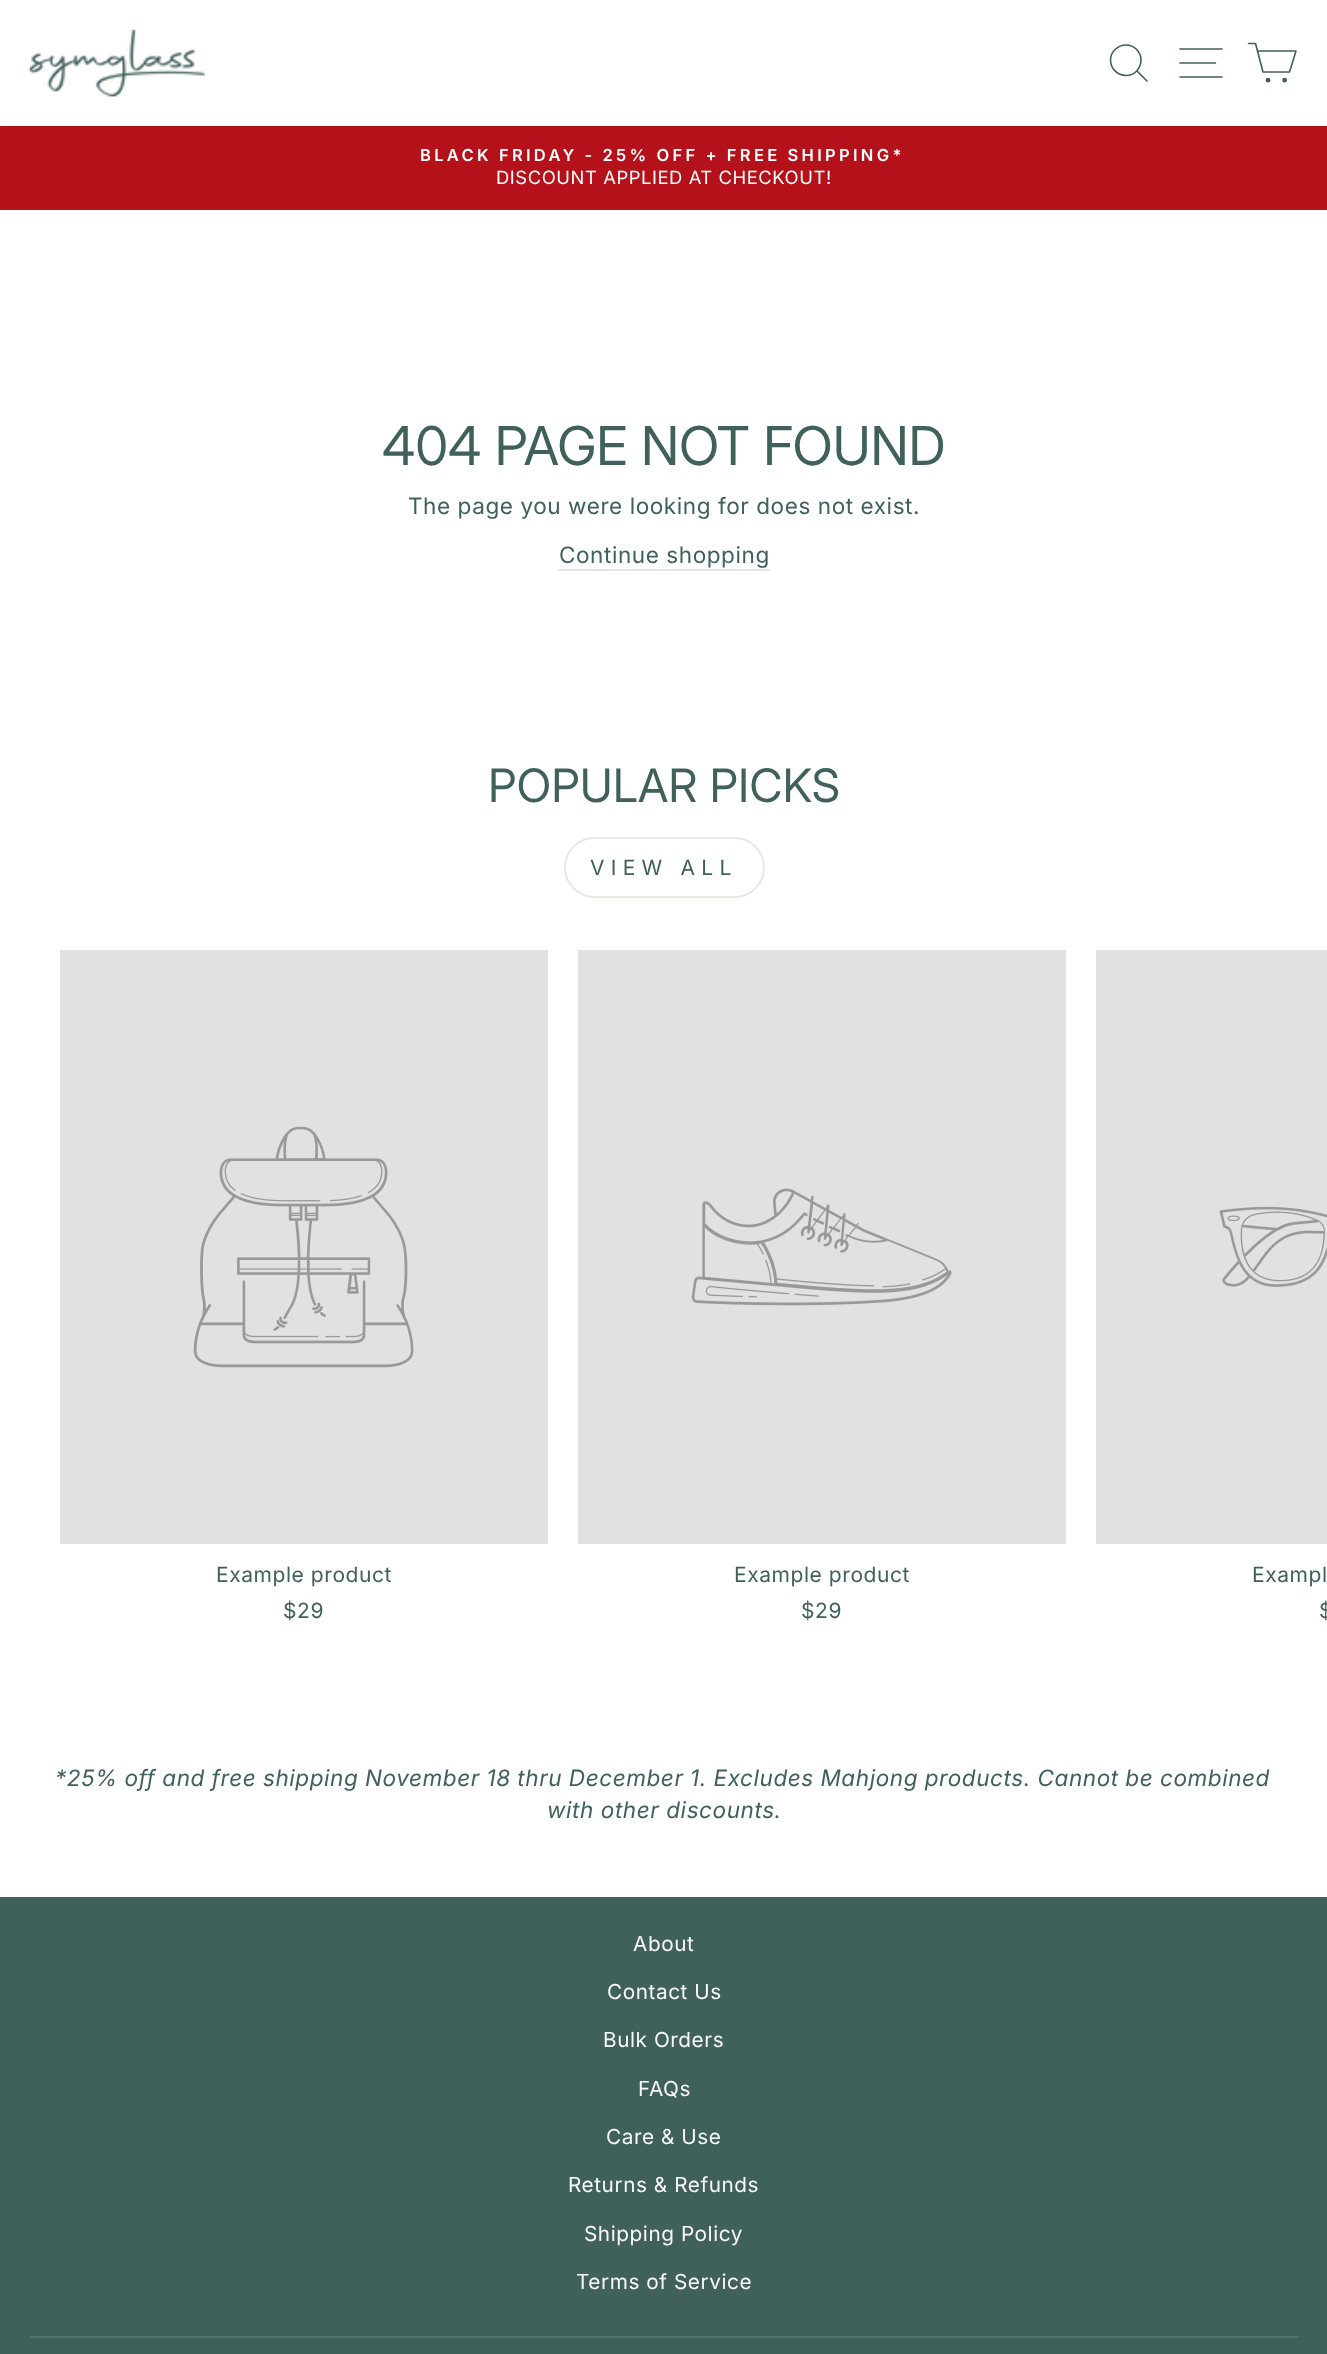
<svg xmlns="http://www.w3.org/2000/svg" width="1327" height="2354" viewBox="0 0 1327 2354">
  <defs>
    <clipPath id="clip1"><path d="M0 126h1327v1H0z"/></clipPath>
  </defs>
  <rect width="100%" height="100%" fill="#fff"/>
  <path d="M0 126h1327v84H0z" fill="#b5111a"/>
  <g clip-path="url(#clip1)">
    <path d="M0 0h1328v126H0z" fill="#00000033" filter="blur(1px)"/>
  </g>
  <image x="29" y="29" width="176" height="68" href="img/1.png"/>
  <path d="M1141 60C1141 68.5 1134.5 75.5 1126 75.5C1117.5 75.5 1110.5 68.5 1110.5 60C1110.5 52 1117.5 45 1126 45C1134.5 45 1141 52 1141 60ZM1147 81L1137 71" fill="none" stroke="#3f605b" stroke-width="1.6" stroke-linecap="round" stroke-linejoin="round"/>
  <path d="M1180 49H1222M1180 63H1215.5M1180 77H1222" fill="none" stroke="#3f605b" stroke-width="1.6" stroke-linecap="round" stroke-linejoin="round"/>
  <path d="M1257.5 51H1296L1289.5 72H1263L1255.5 43.5H1248.5" fill="none" stroke="#3f605b" stroke-width="1.6" stroke-linecap="round" stroke-linejoin="round"/>
  <circle cx="1268.1" cy="80.2" r="1.6" fill="#3f605b" stroke="#3f605b" stroke-width="1.6"/>
  <circle cx="1284.6" cy="80.2" r="1.6" fill="#3f605b" stroke="#3f605b" stroke-width="1.6"/>
  <path d="M558 569h212v2H558z" fill="#e2e7e6"/>
  <rect x="565" y="838" width="199" height="59" rx="29.5" fill="none" stroke="#e8e8e1" stroke-width="2"/>
  <path d="M60 950h488v594H60z" fill="#e1e1e1"/>
  <image x="193" y="1126" width="221" height="242" href="img/2.png"/>
  <path d="M578 950h488v594H578z" fill="#e1e1e1"/>
  <image x="691" y="1188" width="261" height="118" href="img/3.png"/>
  <path d="M1096 950h231v594H1096z" fill="#e1e1e1"/>
  <image x="1219" y="1206" width="108" height="81" href="img/4.png"/>
  <path d="M0 1897h1327v457H0z" fill="#3f605b"/>
  <path d="M30 2336h1269v2H30z" fill="#55726e"/>
  <text x="420" y="161" word-spacing="-0.5" font-family="Inter" font-size="16.55" font-weight="600" letter-spacing="3.3" fill="#fff">BLACK FRIDAY - 25% OFF + FREE SHIPPING*</text>
  <text x="496" y="184" font-family="Inter" font-size="18.4" letter-spacing="0.56" fill="#fff">DISCOUNT APPLIED AT CHECKOUT!</text>
  <text x="382" y="465" font-family="'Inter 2'" font-size="53.5" fill="#3f605b">404 PAGE NOT FOUND</text>
  <g font-family="Inter" font-size="22.55" letter-spacing="0.56" fill="#3f605b">
    <text x="408" y="514">The page you were looking for does not exist.</text>
    <text x="559" y="563">Continue shopping</text>
  </g>
  <text x="488" y="802" font-family="'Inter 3'" font-size="46" fill="#3f605b">POPULAR PICKS</text>
  <text x="590" y="875" font-family="Inter" font-size="21" letter-spacing="6.25" fill="#3f605b">VIEW ALL</text>
  <g font-family="Inter" font-size="21" letter-spacing="0.56" fill="#3f605b">
    <text x="216" y="1582">Example product</text>
    <text x="283" y="1618">$29</text>
    <text x="734" y="1582">Example product</text>
    <text x="801" y="1618">$29</text>
    <text x="1252" y="1582">Exampl</text>
    <text x="1319" y="1618">$</text>
  </g>
  <g font-family="Inter" font-size="22.55" font-style="italic" letter-spacing="0.56" fill="#3f605b">
    <text x="55" y="1786" word-spacing="-0.25">*25% off and free shipping November 18 thru December 1. Excludes Mahjong products. Cannot be combined</text>
    <text x="547" y="1818">with other discounts.</text>
  </g>
  <g font-family="Inter" font-size="20.75" letter-spacing="0.56" fill="#f9f9f9">
    <text x="633" y="1951">About</text>
    <text x="607" y="1999">Contact Us</text>
    <text x="603" y="2047">Bulk Orders</text>
    <text x="638" y="2096">FAQs</text>
    <text x="606" y="2144">Care &amp; Use</text>
    <text x="568" y="2192">Returns &amp; Refunds</text>
    <text x="584" y="2241">Shipping Policy</text>
    <text x="576" y="2289">Terms of Service</text>
  </g>
</svg>
